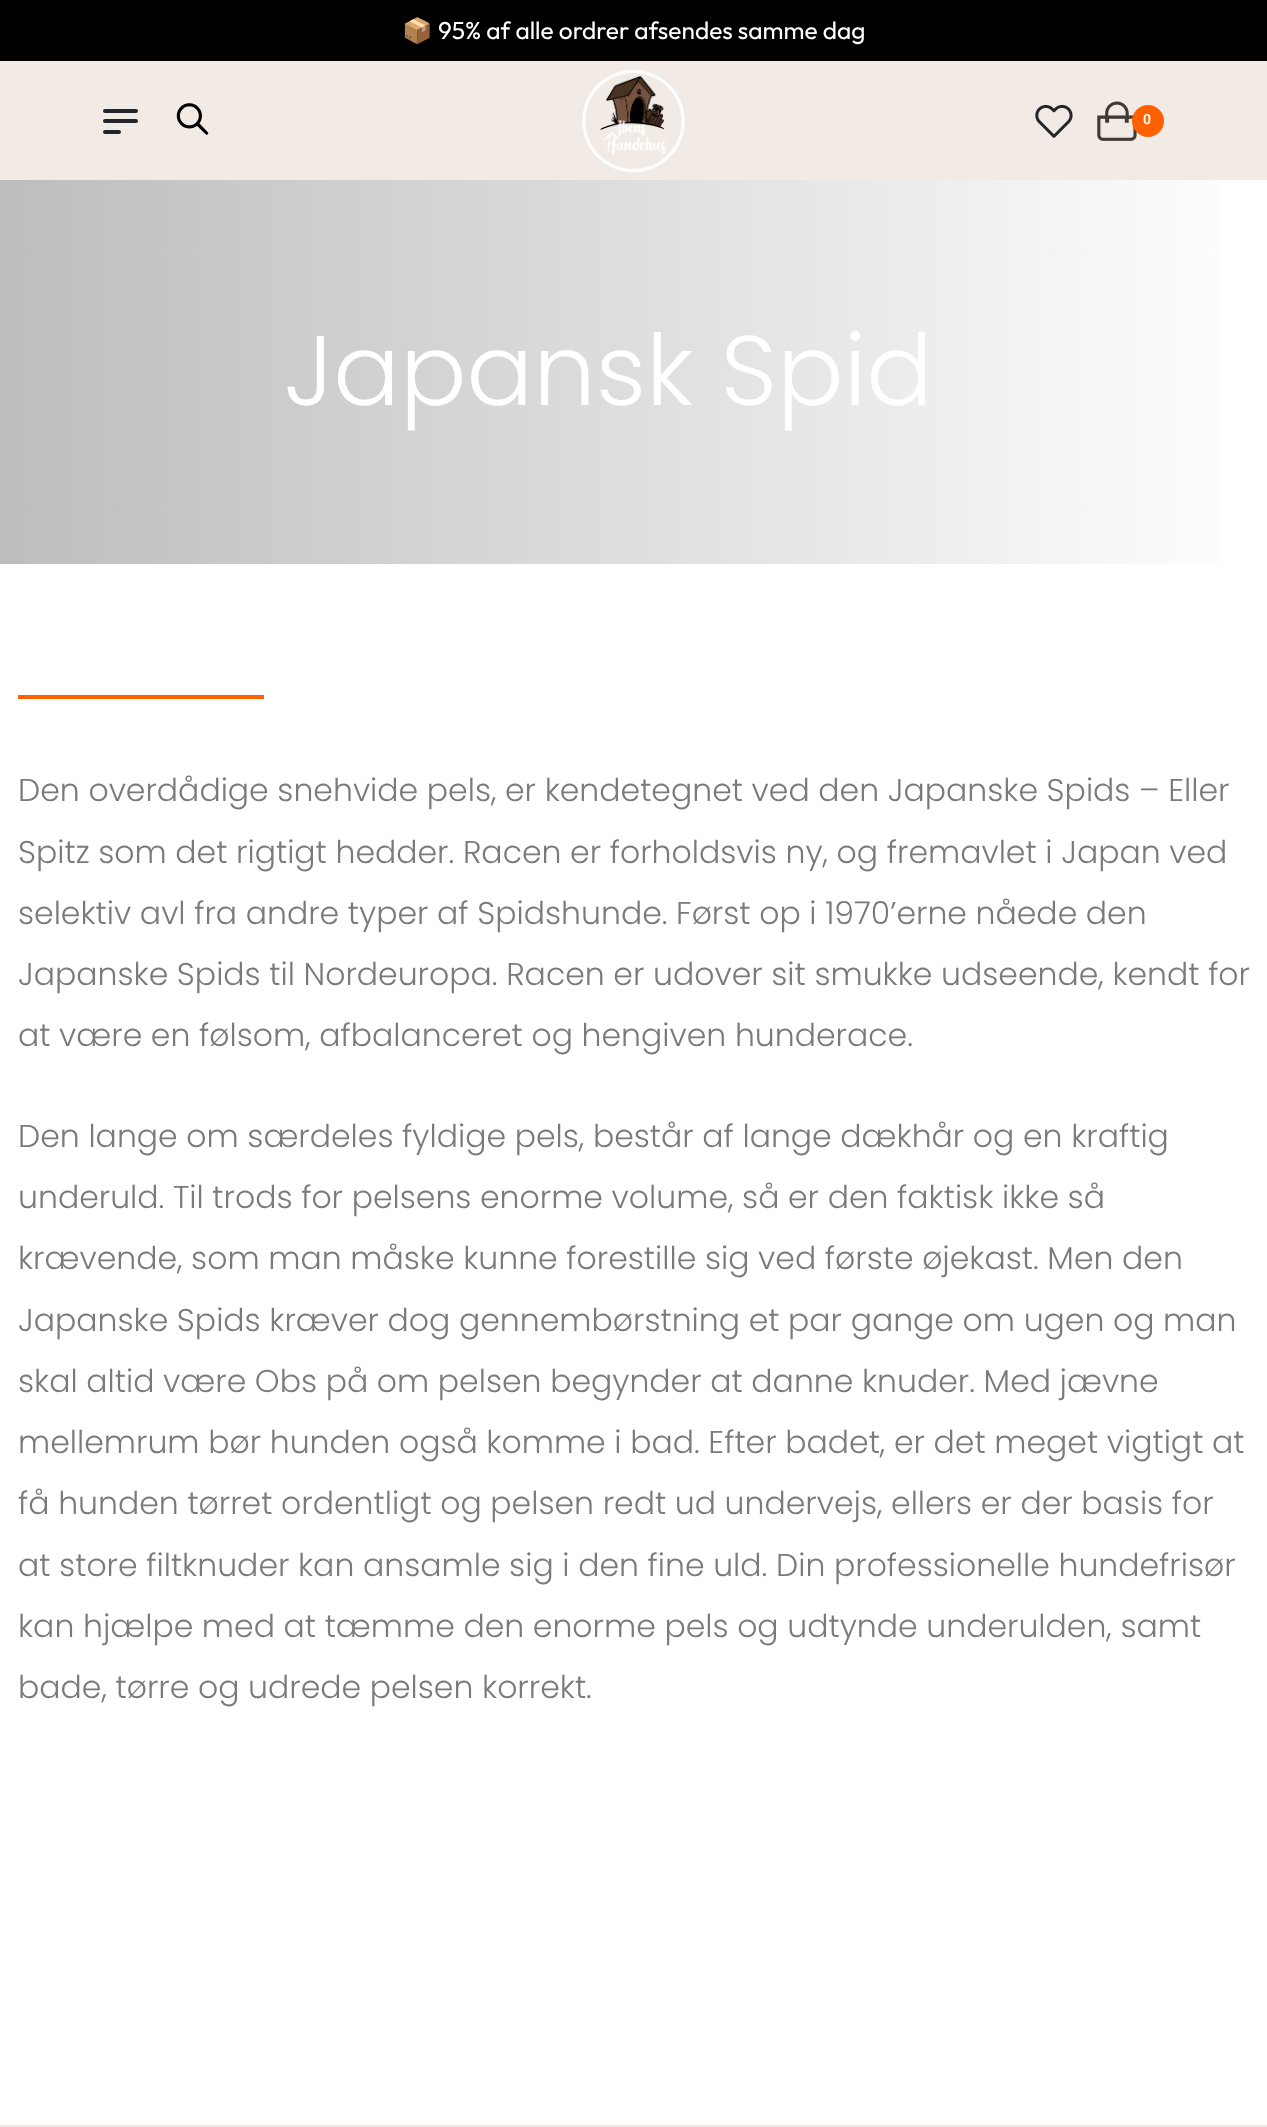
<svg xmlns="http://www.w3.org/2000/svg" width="1267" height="2127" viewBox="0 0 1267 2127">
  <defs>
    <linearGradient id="g1" gradientUnits="userSpaceOnUse" x1="1267" y1="372" x2="0" y2="372"><stop offset="0" stop-color="#fff"/><stop offset="1" stop-color="#bdbdbd"/></linearGradient>
  </defs>
  <rect width="100%" height="100%" fill="#fff"/>
  <path d="M0 0h1267v61H0z" fill="#000"/>
  <path d="M0 61h1267v119H0z" fill="#f2ebe5"/>
  <rect x="103" y="109" width="35" height="4" rx="2" fill="#22262a"/>
  <rect x="103" y="119" width="35" height="4" rx="2" fill="#22262a"/>
  <rect x="103" y="130" width="18" height="4" rx="2" fill="#22262a"/>
  <image x="176" y="103" width="33" height="32" href="img/1.png"/>
  <image x="582" y="70" width="103" height="103" href="img/2.png"/>
  <image x="1035" y="104" width="38" height="34" href="img/3.png"/>
  <image x="1097" y="101" width="40" height="40" href="img/4.png"/>
  <circle cx="1148" cy="121" r="16" fill="#ff6000"/>
  <path d="M0 180h1219v384H0z" fill="url(#g1)"/>
  <path d="M18 695h246v4H18z" fill="#ff6000"/>
  <path d="M0 2125h1267v2H0z" fill="#eee7e4"/>
  <text x="402" y="39" font-family="Noto Color Emoji" font-size="24.5" fill="#fff">📦</text>
  <text x="438" y="39" font-family="Outfit" font-size="24.5" font-weight="100" fill="#fff">95% af alle ordrer afsendes samme dag</text>
  <text x="1143" y="124" font-family="Roboto" font-size="14" font-weight="600" fill="#fff">0</text>
  <text x="284" y="405" font-family="Poppins" font-size="98.75" font-weight="300" fill="#fff">Japansk Spid</text>
  <g font-family="Poppins" font-size="31.5" font-weight="300" fill="#7a7a7a">
    <text x="18" y="801">Den overdådige snehvide pels, er kendetegnet ved den Japanske Spids – Eller</text>
    <text x="18" y="863">Spitz som det rigtigt hedder. Racen er forholdsvis ny, og fremavlet i Japan ved</text>
    <text x="18" y="924">selektiv avl fra andre typer af Spidshunde. Først op i 1970’erne nåede den</text>
    <text x="18" y="985">Japanske Spids til Nordeuropa. Racen er udover sit smukke udseende, kendt for</text>
    <text x="18" y="1046">at være en følsom, afbalanceret og hengiven hunderace.</text>
    <text x="18" y="1147">Den lange om særdeles fyldige pels, består af lange dækhår og en kraftig</text>
    <text x="18" y="1208">underuld. Til trods for pelsens enorme volume, så er den faktisk ikke så</text>
    <text x="18" y="1269">krævende, som man måske kunne forestille sig ved første øjekast. Men den</text>
    <text x="18" y="1331">Japanske Spids kræver dog gennembørstning et par gange om ugen og man</text>
    <text x="18" y="1392">skal altid være Obs på om pelsen begynder at danne knuder. Med jævne</text>
    <text x="18" y="1453">mellemrum bør hunden også komme i bad. Efter badet, er det meget vigtigt at</text>
    <text x="18" y="1514">få hunden tørret ordentligt og pelsen redt ud undervejs, ellers er der basis for</text>
    <text x="18" y="1576">at store filtknuder kan ansamle sig i den fine uld. Din professionelle hundefrisør</text>
    <text x="18" y="1637">kan hjælpe med at tæmme den enorme pels og udtynde underulden, samt</text>
    <text x="18" y="1698">bade, tørre og udrede pelsen korrekt.</text>
  </g>
</svg>
